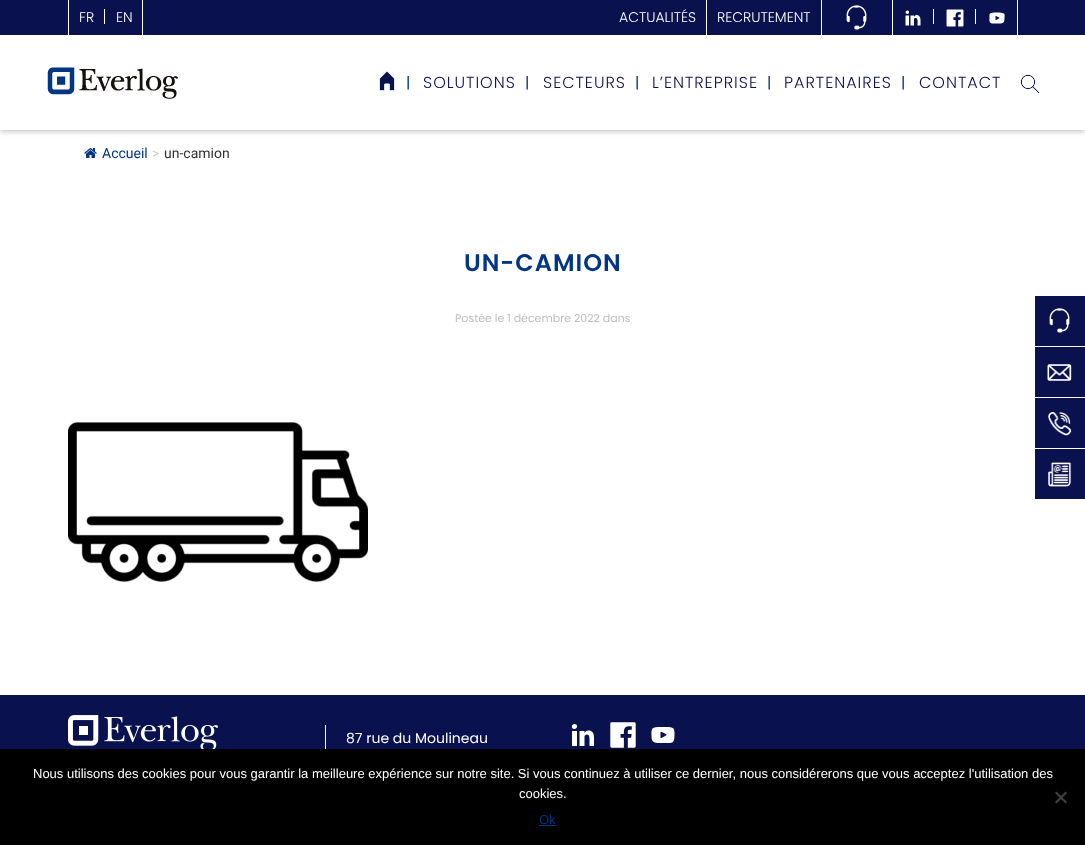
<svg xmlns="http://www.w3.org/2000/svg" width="1085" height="845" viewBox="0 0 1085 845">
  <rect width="100%" height="100%" fill="#fff"/>
  <path d="M0 37h1085v95H0z" fill="#30303042" filter="blur(2.5px)"/>
  <path d="M0 0h1085v35H0z" fill="#09114e"/>
  <path d="M68 0h1v35H68z" fill="#fff"/>
  <path d="M104 9h1v15H104z" fill="#fff"/>
  <path d="M142 0h1v35H142z" fill="#fff"/>
  <path d="M706 0h1v35H706z" fill="#fff"/>
  <path d="M821 0h1v35H821z" fill="#fff"/>
  <image x="846" y="5" width="21" height="25" href="img/1.png"/>
  <path d="M892 0h1v35H892z" fill="#fff"/>
  <path d="M907.5 10.5C909.5 10.5 909.5 14 907.5 14C905 14 905 10.5 907.5 10.5ZM920.5 19.5C920.5 15.5 916 13 914 17V15.5H910.5V25.5H914V19C914 18.5 914.5 18 915.5 18C918.5 17.5 917.5 24 917.5 25.5H920.5ZM914 17H914ZM905.5 25.5V15.5H909V25.5Z" fill="#fff" fill-rule="evenodd"/>
  <path d="M933 9h1v15H933z" fill="#fff"/>
  <image x="946" y="9" width="18" height="18" href="img/2.png"/>
  <path d="M975 9h1v15H975z" fill="#fff"/>
  <path d="M1004 13.5C1005 14.5 1004.5 16.5 1004.5 17.5C1004.5 24 1003 23.5 997 23.5C995 23.5 991.5 24 990 22.5C989 21 989.5 19 989.5 17.5C989.5 16.5 989 14.5 990 13.5C991 12 1002.5 12 1004 13.5ZM999 18.5C999.5 18 999.5 17.5 999 17.5L997 16.5C995.5 15.5 995.5 15.5 995.5 17V20H996Z" fill="#fff" fill-rule="evenodd"/>
  <path d="M1017 0h1v35H1017z" fill="#fff"/>
  <path d="M0 35h1085v95H0z" fill="#fff"/>
  <image x="47" y="67" width="131" height="32" href="img/3.png"/>
  <image x="379" y="71" width="16" height="20" href="img/4.png"/>
  <image x="1020" y="74" width="20" height="19" href="img/5.png"/>
  <image x="84" y="148" width="13" height="10" href="img/6.png"/>
  <image x="68" y="422" width="300" height="160" href="img/7.png"/>
  <path d="M0 695h1085v54H0z" fill="#09114f"/>
  <image x="68" y="715" width="150" height="34" href="img/8.png"/>
  <path d="M325 725h1v24H325z" fill="#fff"/>
  <path d="M574.5 724C578 724 578 728.5 574.5 729C571 729.5 571 724 574.5 724ZM594 737.5C594 733 592 730.5 588.5 730.5C586 730.5 585 732 584.5 733V731H579.5V746H584.5V736.5C584.5 735.5 585.5 735 586.5 734.5C590 734 589.5 739 589.5 741V746H594ZM584.5 733H584.5ZM572 746V731H577V746Z" fill="#fff" fill-rule="evenodd"/>
  <image x="610" y="722" width="26" height="26" href="img/9.png"/>
  <path d="M673.5 728.5C674.5 730 674.5 733 674.5 735C674.5 744.5 671.5 743 663 743C660.5 743 655 743.5 653 741.5C651.5 740 651.5 737.5 651.5 735.5C651.5 733.5 651 730 652.5 728.5C654.5 726.5 660.5 727 663 727C665.5 727 671.5 726.5 673.5 728.5ZM666 735.5C666.5 735.5 666.5 734.5 666.5 734.5L663 732.5C660.5 731.5 660.5 731 660.5 734V737.5C660.5 738 661 738 661.5 738Z" fill="#fff" fill-rule="evenodd"/>
  <path d="M1035 296h50v50H1035z" fill="#09114f"/>
  <image x="1049" y="308" width="21" height="25" href="img/10.png"/>
  <path d="M1035 347h50v50H1035z" fill="#09114f"/>
  <image x="1047" y="364" width="25" height="17" href="img/11.png"/>
  <path d="M1035 398h50v50H1035z" fill="#09114f"/>
  <image x="1048" y="412" width="24" height="24" href="img/12.png"/>
  <path d="M1035 449h50v50H1035z" fill="#09114f"/>
  <image x="1048" y="462" width="24" height="25" href="img/13.png"/>
  <path d="M0 749h1085v96H0z" fill="#000"/>
  <path d="M1065.5 791.5L1067 793L1056.5 803.5L1055 802Z" fill="#404040"/>
  <path d="M1055 793L1056.5 791.5L1067 802L1065.5 803.5Z" fill="#404040"/>
  <path d="M539 825h17v1H539z" fill="#013585"/>
  <g font-family="Poppins" font-size="14" font-weight="300" fill="#fff">
    <text x="79" y="22">FR</text>
    <text x="116" y="22">EN</text>
    <text x="619" y="22">ACTUALITÉS</text>
    <text x="717" y="22">RECRUTEMENT</text>
  </g>
  <text x="406" y="88" font-family="Poppins" font-size="15" fill="#013585">|</text>
  <text x="423" y="88" font-family="Poppins" font-size="16" font-weight="300" letter-spacing="1" fill="#09114f">SOLUTIONS</text>
  <text x="525" y="88" font-family="Poppins" font-size="15" fill="#013585">|</text>
  <text x="543" y="88" font-family="Poppins" font-size="16" font-weight="300" letter-spacing="1" fill="#09114f">SECTEURS</text>
  <text x="635" y="88" font-family="Poppins" font-size="15" fill="#013585">|</text>
  <text x="652" y="88" font-family="Poppins" font-size="16" font-weight="300" letter-spacing="1" fill="#09114f">L’ENTREPRISE</text>
  <text x="767" y="88" font-family="Poppins" font-size="15" fill="#013585">|</text>
  <text x="784" y="88" font-family="Poppins" font-size="16" font-weight="300" letter-spacing="1" fill="#09114f">PARTENAIRES</text>
  <text x="901" y="88" font-family="Poppins" font-size="15" fill="#013585">|</text>
  <text x="919" y="88" font-family="Poppins" font-size="16" font-weight="300" letter-spacing="1" fill="#09114f">CONTACT</text>
  <text x="102" y="158" font-family="Roboto" font-size="14" fill="#013585">Accueil</text>
  <text x="152" y="158" font-family="Roboto" font-size="14" fill="#ccc">&gt;</text>
  <text x="164" y="158" font-family="Roboto" font-size="14" fill="#313131">un-camion</text>
  <text x="464" y="271" font-family="Poppins" font-size="24" font-weight="600" letter-spacing="1" fill="#013585">UN-CAMION</text>
  <text x="455" y="322" font-family="Poppins" font-size="11" fill="#bebebe">Postée le 1 décembre 2022 dans</text>
  <text x="346" y="743" font-family="Poppins" font-size="14" fill="#fff">87 rue du Moulineau</text>
  <g font-family="Liberation Sans" font-size="13" fill="#fff">
    <text x="33" y="778">Nous utilisons des cookies pour vous garantir la meilleure expérience sur notre site. Si vous continuez à utiliser ce dernier, nous considérerons que vous acceptez l'utilisation des</text>
    <text x="519" y="798">cookies.</text>
  </g>
  <text x="539" y="824" font-family="Liberation Sans" font-size="13" fill="#013585">Ok</text>
</svg>
